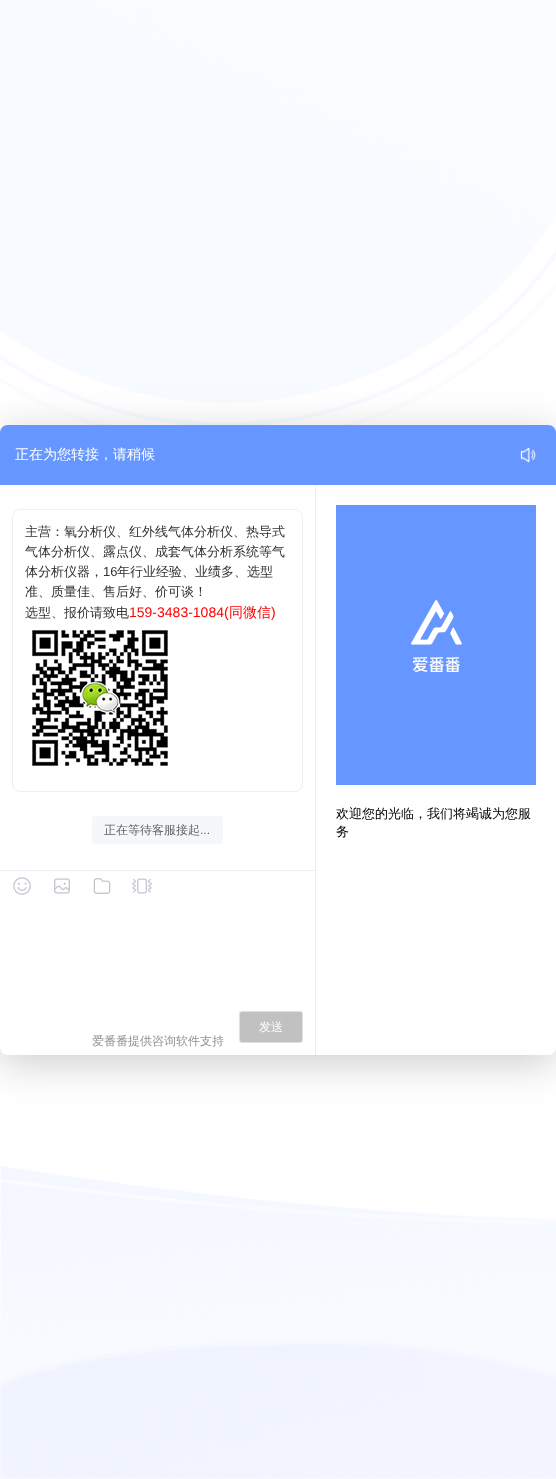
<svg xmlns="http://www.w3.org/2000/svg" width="556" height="1479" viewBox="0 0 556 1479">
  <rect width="100%" height="100%" fill="#fff"/>
  <image x="0" y="0" width="556" height="1479" href="img/1.png"/>
  <rect y="433" width="556" height="630" rx="8" fill="#00000033" filter="blur(20px)"/>
  <path d="M8 425H548C552.5 425 556 428.5 556 433V485H0V433C0 428.5 3.5 425 8 425Z" fill="#6696ff"/>
  <image x="520" y="447" width="16" height="16" href="img/2.png"/>
  <path d="M0 485H315V1055H8C3.5 1055 0 1051.5 0 1047Z" fill="#fff"/>
  <rect x="12.5" y="509.5" width="290" height="282" rx="7.5" fill="none" stroke="#ebeef5"/>
  <image x="32" y="630" width="136" height="136" href="img/3.png"/>
  <rect x="92" y="816" width="131" height="28" rx="4" fill="#f5f7fa"/>
  <path d="M0 870h315v1H0z" fill="#ebeef5"/>
  <image x="13" y="877" width="18" height="18" href="img/4.png"/>
  <image x="54" y="878" width="16" height="16" href="img/5.png"/>
  <image x="93" y="878" width="18" height="16" href="img/6.png"/>
  <image x="132" y="878" width="20" height="16" href="img/7.png"/>
  <rect x="239.5" y="1011.5" width="63" height="31" rx="2.5" fill="#c1c1c1" stroke="#dcdfe6"/>
  <path d="M315 485H556V1047C556 1051.5 552.5 1055 548 1055H315Z" fill="#fff"/>
  <path d="M315 485h1v570H315z" fill="#ebeef5"/>
  <path d="M336 505h200v280H336z" fill="#6696ff"/>
  <image x="411" y="600" width="51" height="72" href="img/8.png"/>
  <text x="15" y="459" font-family="WenQuanYi Zen Hei" font-size="14" font-weight="500" fill="#fff">正在为您转接，请稍候</text>
  <g font-family="WenQuanYi Zen Hei" font-size="13" font-weight="500" fill="#303133">
    <text x="25" y="536">主营：氧分析仪、红外线气体分析仪、热导式</text>
    <text x="25" y="556">气体分析仪、露点仪、成套气体分析系统等气</text>
    <text x="25" y="576">体分析仪器，</text>
  </g>
  <text x="103" y="576" font-family="Liberation Sans" font-size="13" fill="#303133">16</text>
  <g font-family="WenQuanYi Zen Hei" font-size="13" font-weight="500" fill="#303133">
    <text x="117" y="576">年行业经验、业绩多、选型</text>
    <text x="25" y="596">准、质量佳、售后好、价可谈！</text>
    <text x="25" y="617">选型、报价请致电</text>
  </g>
  <text x="129" y="617" font-family="Liberation Sans" font-size="14" fill="#fe0100">159-3483-1084(</text>
  <text x="229" y="617" font-family="WenQuanYi Zen Hei" font-size="14" font-weight="500" fill="#fe0100">同微信</text>
  <text x="271" y="617" font-family="Liberation Sans" font-size="14" fill="#fe0100">)</text>
  <text x="104" y="834" font-family="WenQuanYi Zen Hei" font-size="12" font-weight="500" fill="#606266">正在等待客服接起</text>
  <text x="200" y="834" font-family="Liberation Sans" font-size="12" fill="#606266">...</text>
  <text x="259" y="1031" font-family="WenQuanYi Zen Hei" font-size="12" font-weight="500" fill="#fff">发送</text>
  <text x="92" y="1045" font-family="WenQuanYi Zen Hei" font-size="12" font-weight="500" fill="#909399">爱番番提供咨询软件支持</text>
  <g font-family="WenQuanYi Zen Hei" font-size="13" font-weight="500" fill="#000">
    <text x="336" y="818">欢迎您的光临，我们将竭诚为您服</text>
    <text x="336" y="836">务</text>
  </g>
</svg>
